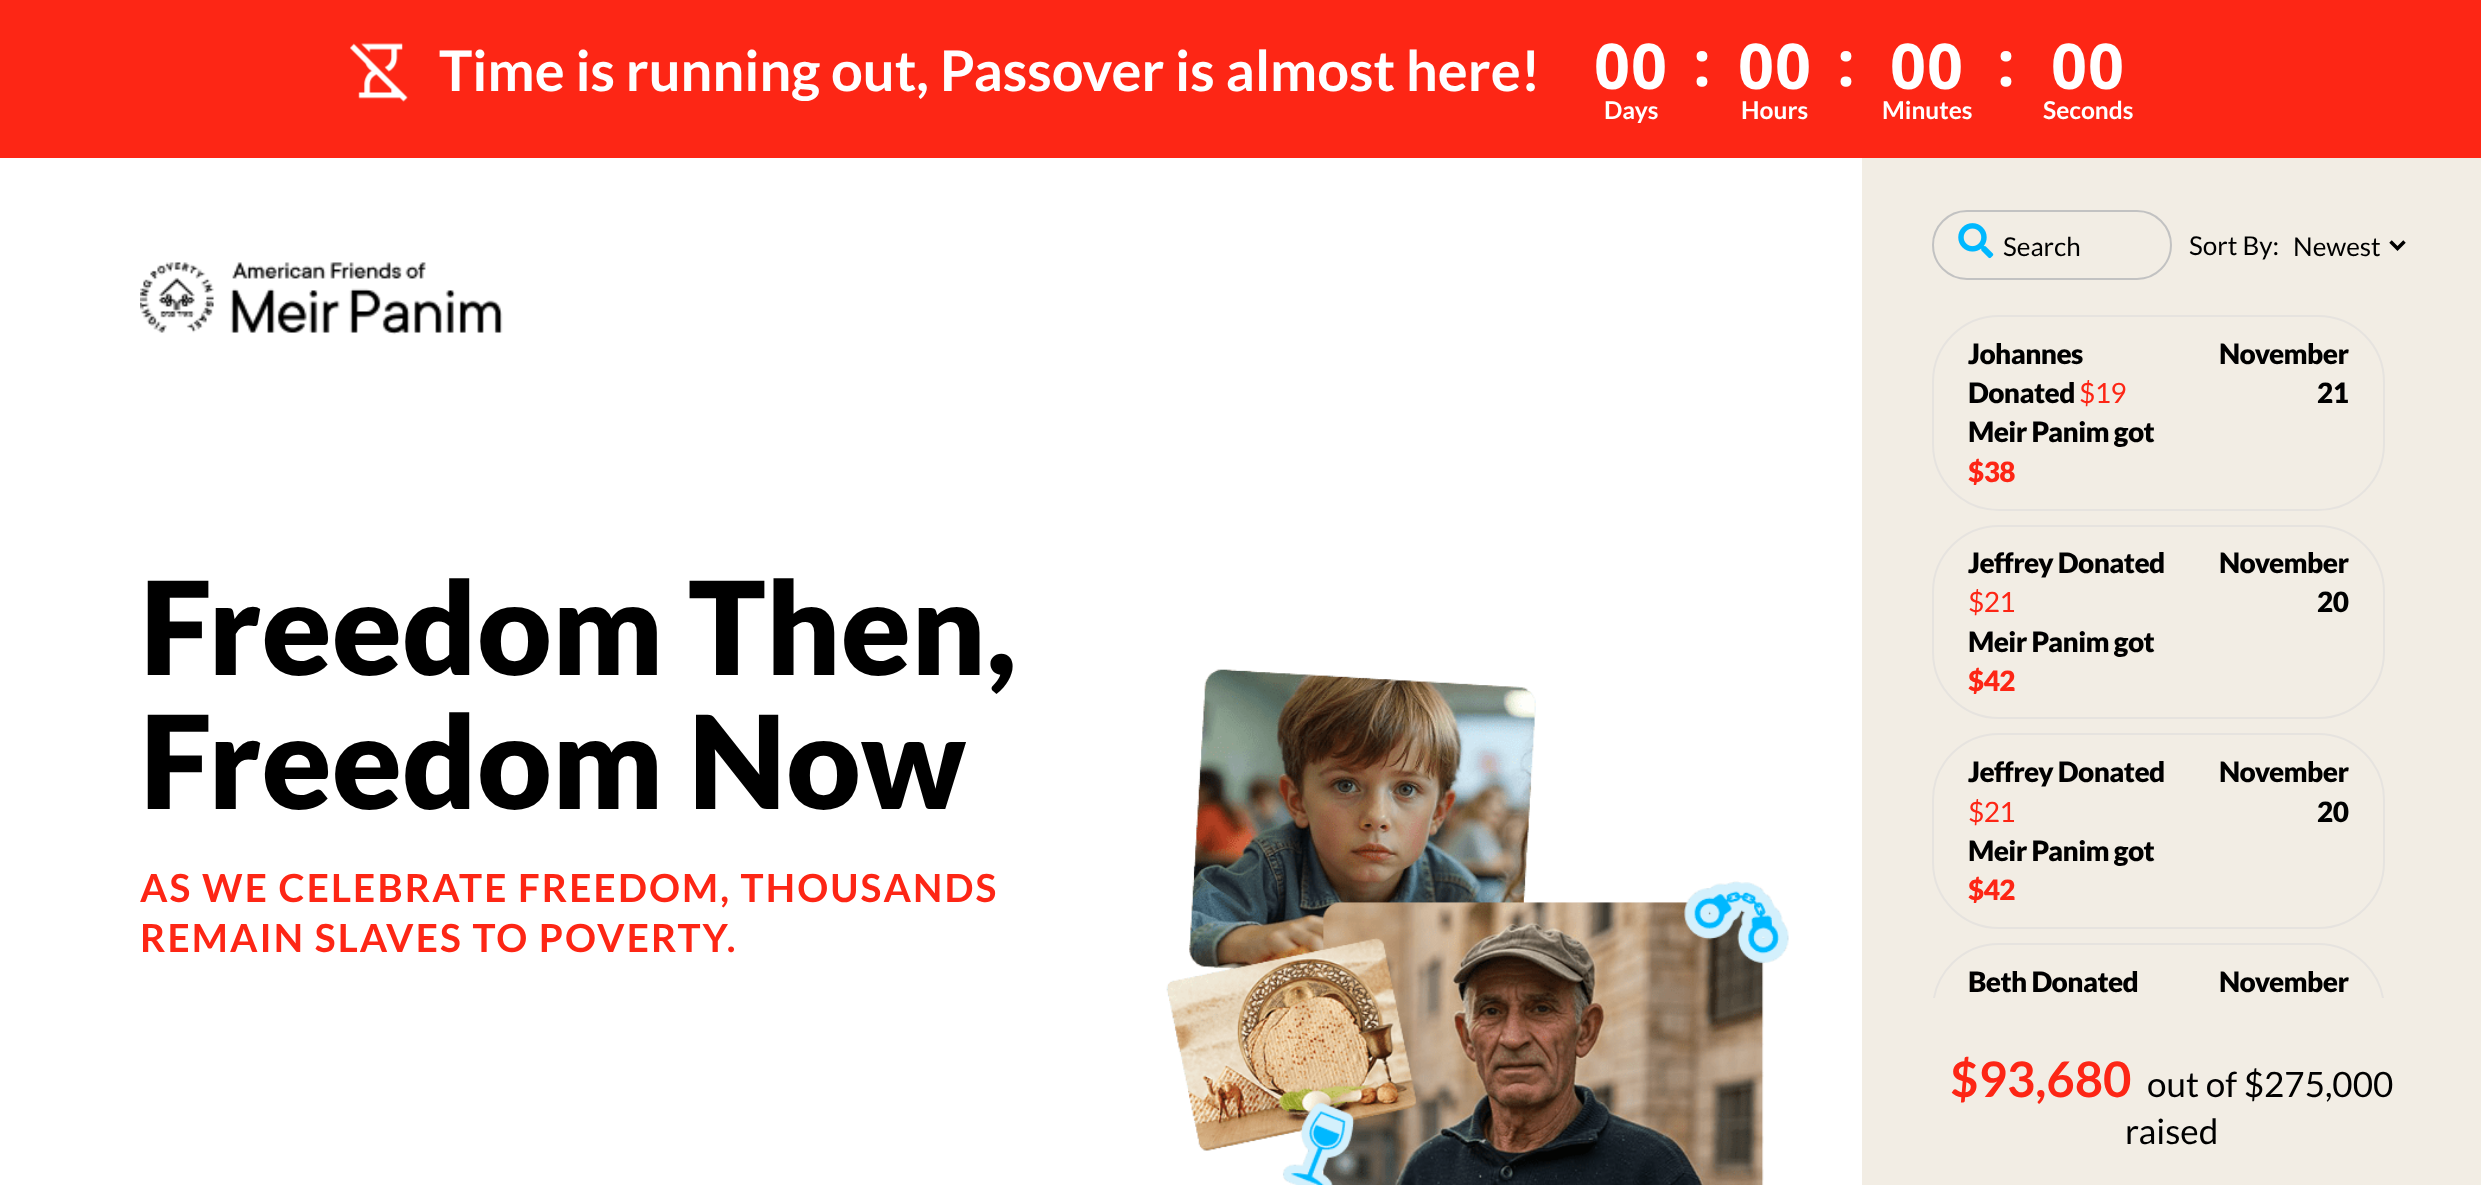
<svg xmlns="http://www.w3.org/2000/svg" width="2481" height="1185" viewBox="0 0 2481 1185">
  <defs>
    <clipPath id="clip1"><path d="M1932 315h480v683H1932z"/></clipPath>
  </defs>
  <rect width="100%" height="100%" fill="#fff"/>
  <path d="M0 0h2481v158H0z" fill="#fd2615"/>
  <image x="350" y="43" width="58" height="59" href="img/1.png"/>
  <image x="140" y="262" width="363" height="73" href="img/2.png"/>
  <image x="1166" y="669" width="623" height="516" href="img/3.png"/>
  <path d="M1862 158h619v1027H1862z" fill="#f2ede4"/>
  <rect x="1933" y="211" width="238" height="68" rx="34" fill="none" stroke="#c2c2c2" stroke-width="2"/>
  <image x="1958" y="223" width="36" height="36" href="img/4.png"/>
  <path d="M2390.5 241.5L2397.5 248.5L2404.5 241.5" fill="none" stroke="#000" stroke-width="3.5"/>
  <rect x="1933" y="316" width="451" height="194" rx="66" fill="none" stroke="#e6e3df" stroke-width="2"/>
  <rect x="1933" y="526" width="451" height="192" rx="66" fill="none" stroke="#e6e3df" stroke-width="2"/>
  <rect x="1933" y="734" width="451" height="194" rx="66" fill="none" stroke="#e6e3df" stroke-width="2"/>
  <g clip-path="url(#clip1)">
    <rect x="1933" y="944" width="451" height="193" rx="66" fill="none" stroke="#e6e3df" stroke-width="2"/>
  </g>
  <text x="439" y="91" font-family="Lato" font-size="56" font-weight="bold" fill="#fff">Time is running out, Passover is almost here!</text>
  <g font-family="Open Sans" font-size="63" font-weight="bold" letter-spacing="1" fill="#fff">
    <text x="1594" y="89">00</text>
    <text x="1693" y="86">:</text>
  </g>
  <text x="1604" y="119" font-family="Lato" font-size="24.5" font-weight="bold" fill="#fff">Days</text>
  <g font-family="Open Sans" font-size="63" font-weight="bold" letter-spacing="1" fill="#fff">
    <text x="1738" y="89">00</text>
    <text x="1837" y="86">:</text>
  </g>
  <text x="1741" y="119" font-family="Lato" font-size="24.5" font-weight="bold" fill="#fff">Hours</text>
  <g font-family="Open Sans" font-size="63" font-weight="bold" letter-spacing="1" fill="#fff">
    <text x="1890" y="89">00</text>
    <text x="1997" y="86">:</text>
  </g>
  <text x="1882" y="119" font-family="Lato" font-size="24.5" font-weight="bold" fill="#fff">Minutes</text>
  <text x="2051" y="89" font-family="Open Sans" font-size="63" font-weight="bold" letter-spacing="1" fill="#fff">00</text>
  <text x="2043" y="119" font-family="Lato" font-size="24.5" font-weight="bold" fill="#fff">Seconds</text>
  <g font-family="Lato" font-size="129.25" font-weight="900" fill="#000">
    <text x="140" y="675">Freedom Then,</text>
    <text x="140" y="809">Freedom Now</text>
  </g>
  <g font-family="Lato" font-size="38.75" font-weight="bold" letter-spacing="2.1" fill="#fd2615">
    <text x="140" y="902">AS WE CELEBRATE FREEDOM, THOUSANDS</text>
    <text x="140" y="952">REMAIN SLAVES TO POVERTY.</text>
  </g>
  <g font-family="Lato" font-size="26" fill="#000">
    <text x="2003" y="256">Search</text>
    <text x="2189" y="255">Sort By:</text>
    <text x="2293" y="256">Newest</text>
  </g>
  <g font-family="Lato" font-size="28" font-weight="900" letter-spacing="-0.6" fill="#000">
    <text x="1968" y="364">Johannes</text>
    <text x="1968" y="403">Donated</text>
  </g>
  <text x="2079" y="403" font-family="Lato" font-size="28" letter-spacing="-0.6" fill="#fd2615">$19</text>
  <text x="1968" y="442" font-family="Lato" font-size="28" font-weight="900" letter-spacing="-0.6" fill="#000">Meir Panim got</text>
  <text x="1968" y="482" font-family="Lato" font-size="28" font-weight="900" letter-spacing="-0.6" fill="#fd2615">$38</text>
  <g font-family="Lato" font-size="28" font-weight="900" letter-spacing="-0.6" fill="#000">
    <text x="2219" y="364">November</text>
    <text x="2317" y="403">21</text>
    <text x="1968" y="573">Jeffrey Donated</text>
  </g>
  <text x="1968" y="612" font-family="Lato" font-size="28" letter-spacing="-0.6" fill="#fd2615">$21</text>
  <text x="1968" y="652" font-family="Lato" font-size="28" font-weight="900" letter-spacing="-0.6" fill="#000">Meir Panim got</text>
  <text x="1968" y="691" font-family="Lato" font-size="28" font-weight="900" letter-spacing="-0.6" fill="#fd2615">$42</text>
  <g font-family="Lato" font-size="28" font-weight="900" letter-spacing="-0.6" fill="#000">
    <text x="2219" y="573">November</text>
    <text x="2317" y="612">20</text>
    <text x="1968" y="782">Jeffrey Donated</text>
  </g>
  <text x="1968" y="822" font-family="Lato" font-size="28" letter-spacing="-0.6" fill="#fd2615">$21</text>
  <text x="1968" y="861" font-family="Lato" font-size="28" font-weight="900" letter-spacing="-0.6" fill="#000">Meir Panim got</text>
  <text x="1968" y="900" font-family="Lato" font-size="28" font-weight="900" letter-spacing="-0.6" fill="#fd2615">$42</text>
  <g font-family="Lato" font-size="28" font-weight="900" letter-spacing="-0.6" fill="#000">
    <text x="2219" y="782">November</text>
    <text x="2317" y="822">20</text>
    <text x="1968" y="992">Beth Donated</text>
    <text x="2219" y="992">November</text>
  </g>
  <text x="1950" y="1097" font-family="Lato" font-size="49" font-weight="bold" fill="#fd2615">$93,680</text>
  <g font-family="Lato" font-size="35" fill="#000">
    <text x="2147" y="1097">out of $275,000</text>
    <text x="2125" y="1144">raised</text>
  </g>
</svg>
